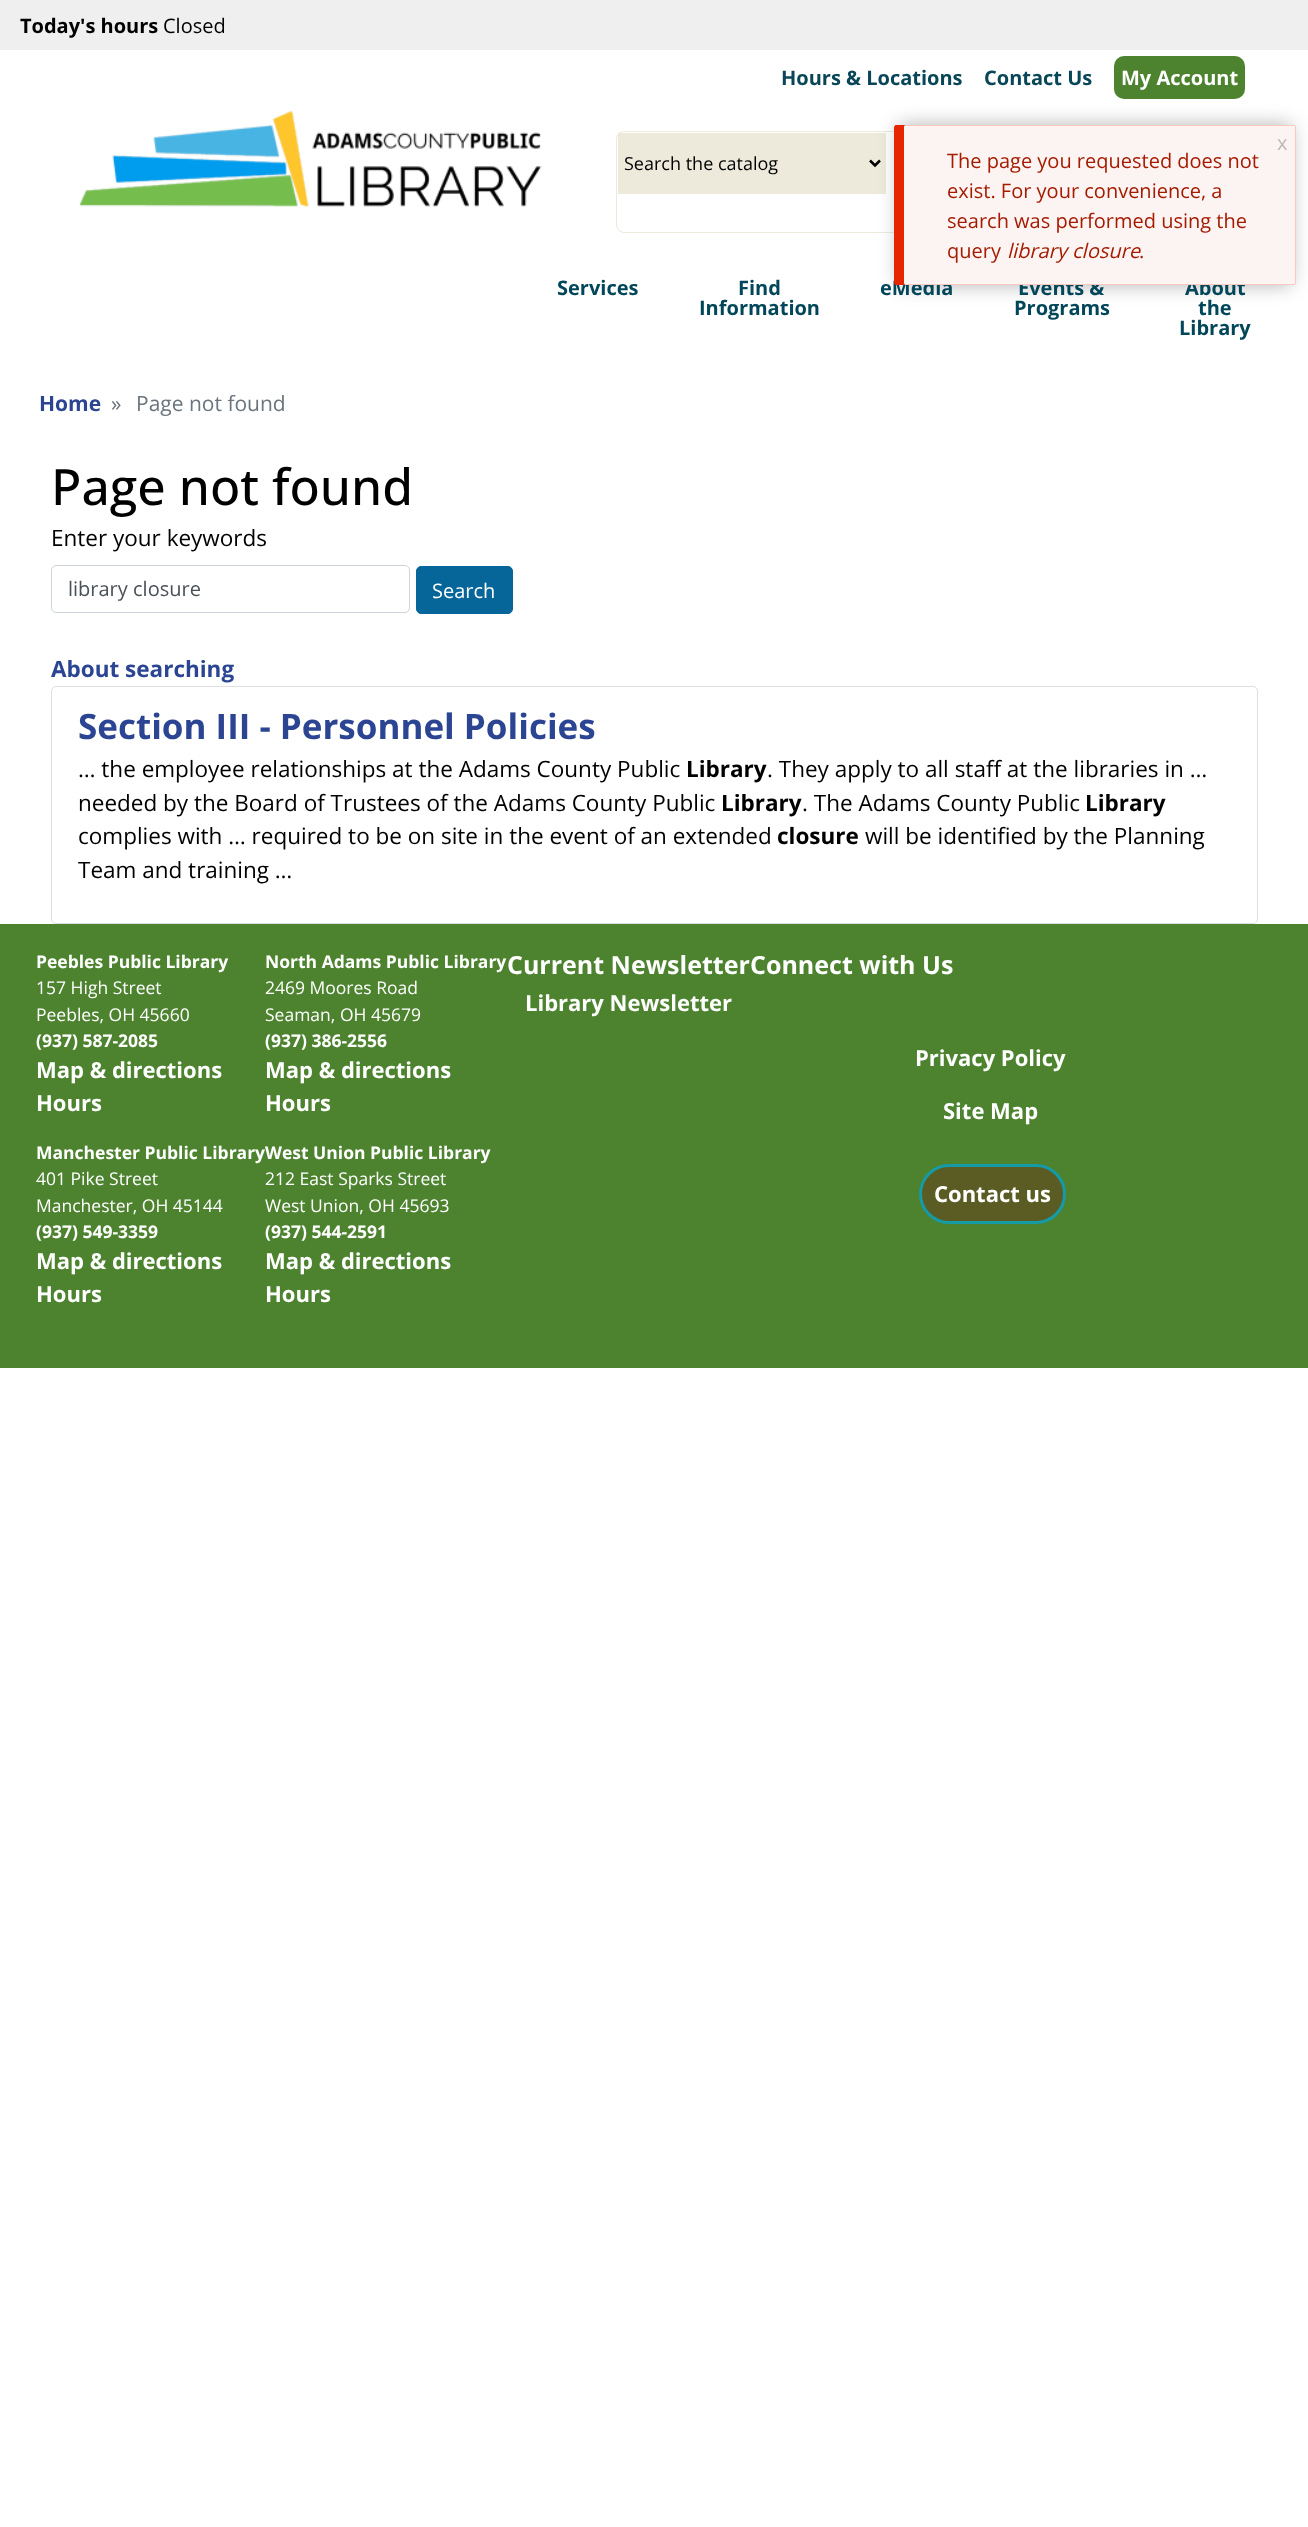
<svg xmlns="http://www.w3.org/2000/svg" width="1308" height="2527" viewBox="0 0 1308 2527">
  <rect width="100%" height="100%" fill="#fff"/>
  <path d="M0 0h1308v50H0z" fill="#efefef"/>
  <rect x="1114" y="56" width="131" height="43" rx="10" fill="#4d832f"/>
  <image x="79" y="111" width="463" height="96" href="img/1.png"/>
  <rect x="616.5" y="131.5" width="634" height="101" rx="7.5" fill="none" stroke="#edeadc"/>
  <path d="M618 133h268v61H618z" fill="#edeadc"/>
  <path d="M870 160.5L875 165.5L880 160.5" fill="none" stroke="#000" stroke-width="2.5"/>
  <rect x="899" y="125" width="392" height="160" rx="2.5" fill="#0000004d" filter="blur(9.5px)"/>
  <rect x="51.5" y="565.5" width="358" height="47" rx="4.5" fill="none" stroke="#ced4da"/>
  <rect x="416.5" y="566.5" width="96" height="47" rx="4.5" fill="#066699" stroke="#066699"/>
  <rect x="51.5" y="686.5" width="1206" height="237" rx="4.5" fill="none" stroke="#dfdfdf"/>
  <path d="M0 924h1308v444H0z" fill="#4d832f"/>
  <rect x="920.5" y="1165.5" width="144" height="57" rx="28.5" fill="#5a5c23" stroke="#169aa6" stroke-width="3"/>
  <text x="20" y="33" font-family="Open Sans" font-size="20" font-weight="bold" fill="#000">Today's hours</text>
  <text x="163" y="33" font-family="Open Sans" font-size="20" fill="#000">Closed</text>
  <g font-family="Open Sans" font-size="20" font-weight="bold" fill="#084658">
    <text x="781" y="85">Hours &amp; Locations</text>
    <text x="984" y="85">Contact Us</text>
  </g>
  <text x="1121" y="85" font-family="Open Sans" font-size="20" font-weight="bold" fill="#fff">My Account</text>
  <text x="624" y="170" font-family="Open Sans" font-size="18" fill="#000">Search the catalog</text>
  <g font-family="Open Sans" font-size="20" font-weight="bold" fill="#024659">
    <text x="557" y="295">Services</text>
    <text x="738" y="295">Find</text>
    <text x="699" y="315">Information</text>
    <text x="880" y="295">eMedia</text>
    <text x="1018" y="295">Events &amp;</text>
    <text x="1014" y="315">Programs</text>
    <text x="1185" y="295">About</text>
    <text x="1198" y="315">the</text>
    <text x="1179" y="335">Library</text>
  </g>
  <path d="M896 125C895 125 894 126 894 128V282C894 284 895 285 896 285H906C905 285 904 284 904 282V128C904 126 905 125 906 125Z" fill="#e62600"/>
  <rect x="904" y="125" width="392" height="160" rx="2.5" fill="#fcf4f2"/>
  <path d="M905 125h390v1H905z" fill="#f9c9bf"/>
  <path d="M1295 126h1v158H1295z" fill="#f9c9bf"/>
  <path d="M905 284h390v1H905z" fill="#f9c9bf"/>
  <text x="1277" y="150" font-family="Open Sans" font-size="20" fill="#bdb7b6">x</text>
  <g font-family="Open Sans" font-size="20" fill="#a51b00">
    <text x="947" y="168">The page you requested does not</text>
    <text x="947" y="198">exist. For your convenience, a</text>
    <text x="947" y="228">search was performed using the</text>
    <text x="947" y="258">query</text>
  </g>
  <text x="1007" y="258" font-family="Open Sans" font-size="20" font-style="italic" fill="#a51b00">library closure</text>
  <text x="1139" y="258" font-family="Open Sans" font-size="20" fill="#a51b00">.</text>
  <text x="39" y="411" font-family="Open Sans" font-size="21" font-weight="bold" fill="#2b4593">Home</text>
  <g font-family="Open Sans" font-size="21" fill="#6c757d">
    <text x="111" y="411">»</text>
    <text x="136" y="411">Page not found</text>
  </g>
  <text x="51" y="505" font-family="Open Sans" font-size="50" font-weight="500" fill="#000">Page not found</text>
  <text x="51" y="546" font-family="Open Sans" font-size="22.5" fill="#000">Enter your keywords</text>
  <text x="68" y="596" font-family="Open Sans" font-size="20" fill="#495057">library closure</text>
  <text x="432" y="598" font-family="Open Sans" font-size="20" fill="#fff">Search</text>
  <text x="51" y="677" font-family="Open Sans" font-size="22.5" font-weight="bold" fill="#2b4593">About searching</text>
  <text x="78" y="739" font-family="Open Sans" font-size="35" font-weight="bold" fill="#2b4593">Section III - Personnel Policies</text>
  <text x="78" y="777" font-family="Open Sans" font-size="22.5" fill="#000">… the employee relationships at the Adams County Public</text>
  <text x="686" y="777" font-family="Open Sans" font-size="22.5" font-weight="bold" fill="#000">Library</text>
  <g font-family="Open Sans" font-size="22.5" fill="#000">
    <text x="767" y="777">. They apply to all staff at the libraries in …</text>
    <text x="78" y="811">needed by the Board of Trustees of the Adams County Public</text>
  </g>
  <text x="721" y="811" font-family="Open Sans" font-size="22.5" font-weight="bold" fill="#000">Library</text>
  <text x="802" y="811" font-family="Open Sans" font-size="22.5" fill="#000">. The Adams County Public</text>
  <text x="1085" y="811" font-family="Open Sans" font-size="22.5" font-weight="bold" fill="#000">Library</text>
  <text x="78" y="844" font-family="Open Sans" font-size="22.5" fill="#000">complies with … required to be on site in the event of an extended</text>
  <text x="777" y="844" font-family="Open Sans" font-size="22.5" font-weight="bold" fill="#000">closure</text>
  <g font-family="Open Sans" font-size="22.5" fill="#000">
    <text x="865" y="844">will be identified by the Planning</text>
    <text x="78" y="878">Team and training …</text>
  </g>
  <text x="36" y="968" font-family="Open Sans" font-size="17.5" font-weight="bold" fill="#fff">Peebles Public Library</text>
  <g font-family="Open Sans" font-size="17.5" fill="#fff">
    <text x="36" y="994">157 High Street</text>
    <text x="36" y="1021">Peebles, OH 45660</text>
  </g>
  <text x="36" y="1047" font-family="Open Sans" font-size="17.5" font-weight="bold" fill="#fff">(937) 587-2085</text>
  <g font-family="Open Sans" font-size="22" font-weight="bold" fill="#fff">
    <text x="36" y="1078">Map &amp; directions</text>
    <text x="36" y="1111">Hours</text>
  </g>
  <text x="36" y="1159" font-family="Open Sans" font-size="17.5" font-weight="bold" fill="#fff">Manchester Public Library</text>
  <g font-family="Open Sans" font-size="17.5" fill="#fff">
    <text x="36" y="1185">401 Pike Street</text>
    <text x="36" y="1212">Manchester, OH 45144</text>
  </g>
  <text x="36" y="1238" font-family="Open Sans" font-size="17.5" font-weight="bold" fill="#fff">(937) 549-3359</text>
  <g font-family="Open Sans" font-size="22" font-weight="bold" fill="#fff">
    <text x="36" y="1269">Map &amp; directions</text>
    <text x="36" y="1302">Hours</text>
  </g>
  <text x="265" y="968" font-family="Open Sans" font-size="17.5" font-weight="bold" fill="#fff">North Adams Public Library</text>
  <g font-family="Open Sans" font-size="17.5" fill="#fff">
    <text x="265" y="994">2469 Moores Road</text>
    <text x="265" y="1021">Seaman, OH 45679</text>
  </g>
  <text x="265" y="1047" font-family="Open Sans" font-size="17.5" font-weight="bold" fill="#fff">(937) 386-2556</text>
  <g font-family="Open Sans" font-size="22" font-weight="bold" fill="#fff">
    <text x="265" y="1078">Map &amp; directions</text>
    <text x="265" y="1111">Hours</text>
  </g>
  <text x="265" y="1159" font-family="Open Sans" font-size="17.5" font-weight="bold" fill="#fff">West Union Public Library</text>
  <g font-family="Open Sans" font-size="17.5" fill="#fff">
    <text x="265" y="1185">212 East Sparks Street</text>
    <text x="265" y="1212">West Union, OH 45693</text>
  </g>
  <text x="265" y="1238" font-family="Open Sans" font-size="17.5" font-weight="bold" fill="#fff">(937) 544-2591</text>
  <g font-family="Open Sans" font-size="22" font-weight="bold" fill="#fff">
    <text x="265" y="1269">Map &amp; directions</text>
    <text x="265" y="1302">Hours</text>
  </g>
  <text x="507" y="974" font-family="Open Sans" font-size="25" font-weight="bold" fill="#fff">Current Newsletter</text>
  <text x="525" y="1011" font-family="Open Sans" font-size="22" font-weight="bold" fill="#fff">Library Newsletter</text>
  <text x="750" y="974" font-family="Open Sans" font-size="25" font-weight="bold" fill="#fff">Connect with Us</text>
  <g font-family="Open Sans" font-size="22" font-weight="bold" fill="#fff">
    <text x="915" y="1066">Privacy Policy</text>
    <text x="943" y="1119">Site Map</text>
    <text x="934" y="1202">Contact us</text>
  </g>
</svg>
